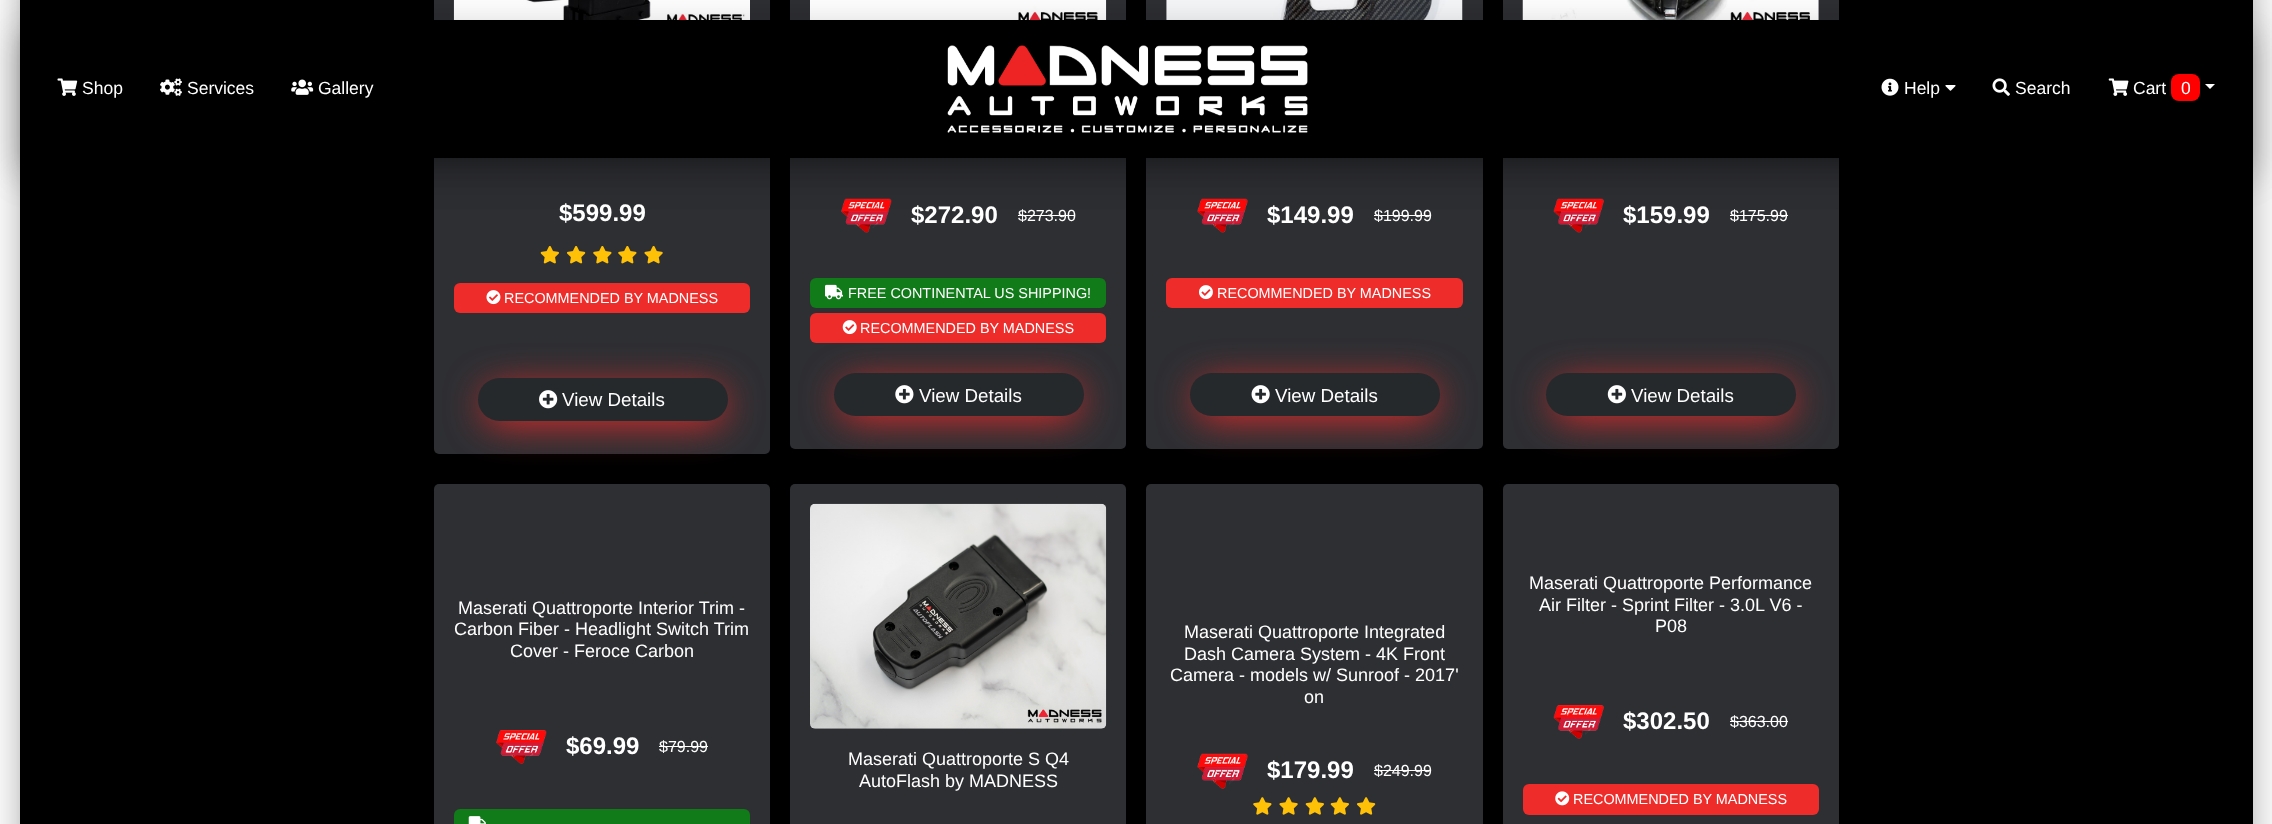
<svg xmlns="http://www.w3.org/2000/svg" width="2272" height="824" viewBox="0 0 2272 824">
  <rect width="100%" height="100%" fill="#fff"/>
  <rect x="26" y="-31" width="2220" height="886" rx="13" fill="#00000033" filter="blur(6px)"/>
  <rect x="14" y="-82" width="2245" height="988" rx="25" fill="#0000001f" filter="blur(19px)"/>
  <rect x="18" y="-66" width="2237" height="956" rx="21" fill="#00000024" filter="blur(15px)"/>
  <path d="M20 0h2233v824H20z" fill="#000"/>
  <rect x="434" y="-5" width="336" height="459" rx="5" fill="#2e2f33"/>
  <image x="453" y="0" width="297" height="20" href="img/9.png"/>
  <rect x="790" y="-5" width="336" height="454" rx="5" fill="#2e2f33"/>
  <image x="810" y="0" width="297" height="20" href="img/16.png"/>
  <rect x="1146" y="-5" width="337" height="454" rx="5" fill="#2e2f33"/>
  <image x="1166" y="0" width="297" height="20" href="img/21.png"/>
  <rect x="1503" y="-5" width="336" height="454" rx="5" fill="#2e2f33"/>
  <image x="1522" y="0" width="297" height="20" href="img/25.png"/>
  <path d="M26 36h2220v125H26z" fill="#00000033" filter="blur(6px)"/>
  <image x="841" y="198" width="51" height="35" href="img/17.png"/>
  <path d="M1018 215h57v1H1018z" fill="#fff"/>
  <image x="1197" y="198" width="51" height="35" href="img/22.png"/>
  <path d="M1374 215h57v1H1374z" fill="#fff"/>
  <image x="1553" y="198" width="51" height="35" href="img/26.png"/>
  <path d="M1730 215h58v1H1730z" fill="#fff"/>
  <path d="M14 21h2245v150H14z" fill="#0000001f" filter="blur(19px)"/>
  <path d="M18 38h2237v142H18z" fill="#00000024" filter="blur(15px)"/>
  <path d="M434 20h1405v138H434z" fill="#000"/>
  <image x="57" y="78" width="21" height="18" href="img/1.png"/>
  <image x="160" y="78" width="22" height="18" href="img/2.png"/>
  <image x="291" y="79" width="23" height="16" href="img/3.png"/>
  <image x="947" y="45" width="361" height="88" href="img/4.png"/>
  <image x="1881" y="78" width="18" height="18" href="img/5.png"/>
  <image x="1945" y="85" width="11" height="6" href="img/6.png"/>
  <image x="1992" y="78" width="18" height="18" href="img/7.png"/>
  <image x="2108" y="78" width="21" height="18" href="img/8.png"/>
  <rect x="2171" y="74" width="29" height="27" rx="8" fill="#f00"/>
  <path d="M2205 84H2215L2210 89Z" fill="#fff"/>
  <image x="540" y="246" width="19" height="18" href="img/10.png"/>
  <image x="567" y="246" width="19" height="18" href="img/11.png"/>
  <image x="593" y="246" width="19" height="18" href="img/12.png"/>
  <image x="618" y="246" width="19" height="18" href="img/12.png"/>
  <image x="644" y="246" width="19" height="18" href="img/13.png"/>
  <rect x="454" y="283" width="296" height="30" rx="6" fill="#ee2c2a"/>
  <image x="486" y="290" width="15" height="15" href="img/14.png"/>
  <rect x="484" y="389" width="240" height="34" rx="17" fill="#ee2c2a" filter="blur(19px)"/>
  <rect x="478" y="378" width="250" height="43" rx="21.5" fill="#25292c"/>
  <image x="539" y="390" width="19" height="19" href="img/15.png"/>
  <rect x="810" y="278" width="296" height="30" rx="6" fill="#107b18"/>
  <image x="825" y="284" width="18" height="16" href="img/18.png"/>
  <rect x="810" y="313" width="296" height="30" rx="6" fill="#ee2c2a"/>
  <image x="842" y="320" width="15" height="15" href="img/19.png"/>
  <rect x="840" y="384" width="240" height="34" rx="17" fill="#ee2c2a" filter="blur(19px)"/>
  <rect x="834" y="373" width="250" height="43" rx="21.5" fill="#25292c"/>
  <image x="895" y="385" width="19" height="19" href="img/20.png"/>
  <rect x="1166" y="278" width="297" height="30" rx="6" fill="#ee2c2a"/>
  <image x="1199" y="285" width="14" height="15" href="img/23.png"/>
  <rect x="1196" y="384" width="240" height="34" rx="17" fill="#ee2c2a" filter="blur(19px)"/>
  <rect x="1190" y="373" width="250" height="43" rx="21.5" fill="#25292c"/>
  <image x="1251" y="385" width="19" height="19" href="img/24.png"/>
  <rect x="1553" y="384" width="240" height="34" rx="17" fill="#ee2c2a" filter="blur(19px)"/>
  <rect x="1546" y="373" width="250" height="43" rx="21.5" fill="#25292c"/>
  <image x="1607" y="385" width="19" height="19" href="img/27.png"/>
  <rect x="434" y="484" width="336" height="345" rx="5" fill="#2e2f33"/>
  <image x="496" y="730" width="51" height="34" href="img/28.png"/>
  <path d="M659 746h49v1H659z" fill="#fff"/>
  <rect x="454" y="809" width="296" height="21" rx="6" fill="#107b18"/>
  <image x="468" y="816" width="18" height="8" href="img/29.png"/>
  <rect x="790" y="484" width="336" height="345" rx="5" fill="#2e2f33"/>
  <image x="810" y="503" width="297" height="226" href="img/30.png"/>
  <rect x="1146" y="484" width="337" height="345" rx="5" fill="#2e2f33"/>
  <image x="1197" y="753" width="51" height="36" href="img/31.png"/>
  <path d="M1374 770h57v1H1374z" fill="#fff"/>
  <image x="1253" y="797" width="19" height="18" href="img/32.png"/>
  <image x="1279" y="797" width="19" height="18" href="img/33.png"/>
  <image x="1305" y="797" width="19" height="18" href="img/34.png"/>
  <image x="1330" y="797" width="19" height="18" href="img/34.png"/>
  <image x="1357" y="797" width="19" height="18" href="img/35.png"/>
  <rect x="1503" y="484" width="336" height="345" rx="5" fill="#2e2f33"/>
  <image x="1553" y="705" width="51" height="34" href="img/36.png"/>
  <path d="M1730 721h58v1H1730z" fill="#fff"/>
  <rect x="1523" y="784" width="296" height="31" rx="6" fill="#ee2c2a"/>
  <image x="1555" y="791" width="15" height="15" href="img/37.png"/>
  <g font-family="Liberation Sans" font-size="17.5" fill="#fff">
    <text x="82" y="94">Shop</text>
    <text x="187" y="94">Services</text>
    <text x="318" y="94">Gallery</text>
    <text x="1904" y="94">Help</text>
    <text x="2015" y="94">Search</text>
    <text x="2133" y="94">Cart</text>
    <text x="2181" y="94">0</text>
  </g>
  <text x="559" y="221" font-family="Liberation Sans" font-size="24" font-weight="bold" fill="#fff">$599.99</text>
  <text x="504" y="303" font-family="Liberation Sans" font-size="14.4" fill="#fff">RECOMMENDED BY MADNESS</text>
  <text x="562" y="406" font-family="Liberation Sans" font-size="18.75" fill="#fff">View Details</text>
  <text x="911" y="223" font-family="Liberation Sans" font-size="24" font-weight="bold" fill="#fff">$272.90</text>
  <text x="1018" y="221" font-family="Liberation Sans" font-size="16" fill="#fff">$273.90</text>
  <g font-family="Liberation Sans" font-size="14.4" fill="#fff">
    <text x="848" y="298">FREE CONTINENTAL US SHIPPING!</text>
    <text x="860" y="333">RECOMMENDED BY MADNESS</text>
  </g>
  <text x="919" y="402" font-family="Liberation Sans" font-size="18.75" fill="#fff">View Details</text>
  <text x="1267" y="223" font-family="Liberation Sans" font-size="24" font-weight="bold" fill="#fff">$149.99</text>
  <text x="1374" y="221" font-family="Liberation Sans" font-size="16" fill="#fff">$199.99</text>
  <text x="1217" y="298" font-family="Liberation Sans" font-size="14.4" fill="#fff">RECOMMENDED BY MADNESS</text>
  <text x="1275" y="402" font-family="Liberation Sans" font-size="18.75" fill="#fff">View Details</text>
  <text x="1623" y="223" font-family="Liberation Sans" font-size="24" font-weight="bold" fill="#fff">$159.99</text>
  <text x="1730" y="221" font-family="Liberation Sans" font-size="16" fill="#fff">$175.99</text>
  <text x="1631" y="402" font-family="Liberation Sans" font-size="18.75" fill="#fff">View Details</text>
  <g font-family="Liberation Sans" font-size="18" fill="#fff">
    <text x="458" y="614">Maserati Quattroporte Interior Trim -</text>
    <text x="454" y="635">Carbon Fiber - Headlight Switch Trim</text>
    <text x="510" y="657">Cover - Feroce Carbon</text>
  </g>
  <text x="566" y="754" font-family="Liberation Sans" font-size="24" font-weight="bold" fill="#fff">$69.99</text>
  <text x="659" y="752" font-family="Liberation Sans" font-size="16" fill="#fff">$79.99</text>
  <g font-family="Liberation Sans" font-size="18" fill="#fff">
    <text x="848" y="765">Maserati Quattroporte S Q4</text>
    <text x="859" y="787">AutoFlash by MADNESS</text>
    <text x="1184" y="638">Maserati Quattroporte Integrated</text>
    <text x="1184" y="660">Dash Camera System - 4K Front</text>
    <text x="1170" y="681">Camera - models w/ Sunroof - 2017'</text>
    <text x="1304" y="703">on</text>
  </g>
  <text x="1267" y="778" font-family="Liberation Sans" font-size="24" font-weight="bold" fill="#fff">$179.99</text>
  <text x="1374" y="776" font-family="Liberation Sans" font-size="16" fill="#fff">$249.99</text>
  <g font-family="Liberation Sans" font-size="18" fill="#fff">
    <text x="1529" y="589">Maserati Quattroporte Performance</text>
    <text x="1539" y="611">Air Filter - Sprint Filter - 3.0L V6 -</text>
    <text x="1655" y="632">P08</text>
  </g>
  <text x="1623" y="729" font-family="Liberation Sans" font-size="24" font-weight="bold" fill="#fff">$302.50</text>
  <text x="1730" y="727" font-family="Liberation Sans" font-size="16" fill="#fff">$363.00</text>
  <text x="1573" y="804" font-family="Liberation Sans" font-size="14.4" fill="#fff">RECOMMENDED BY MADNESS</text>
</svg>
